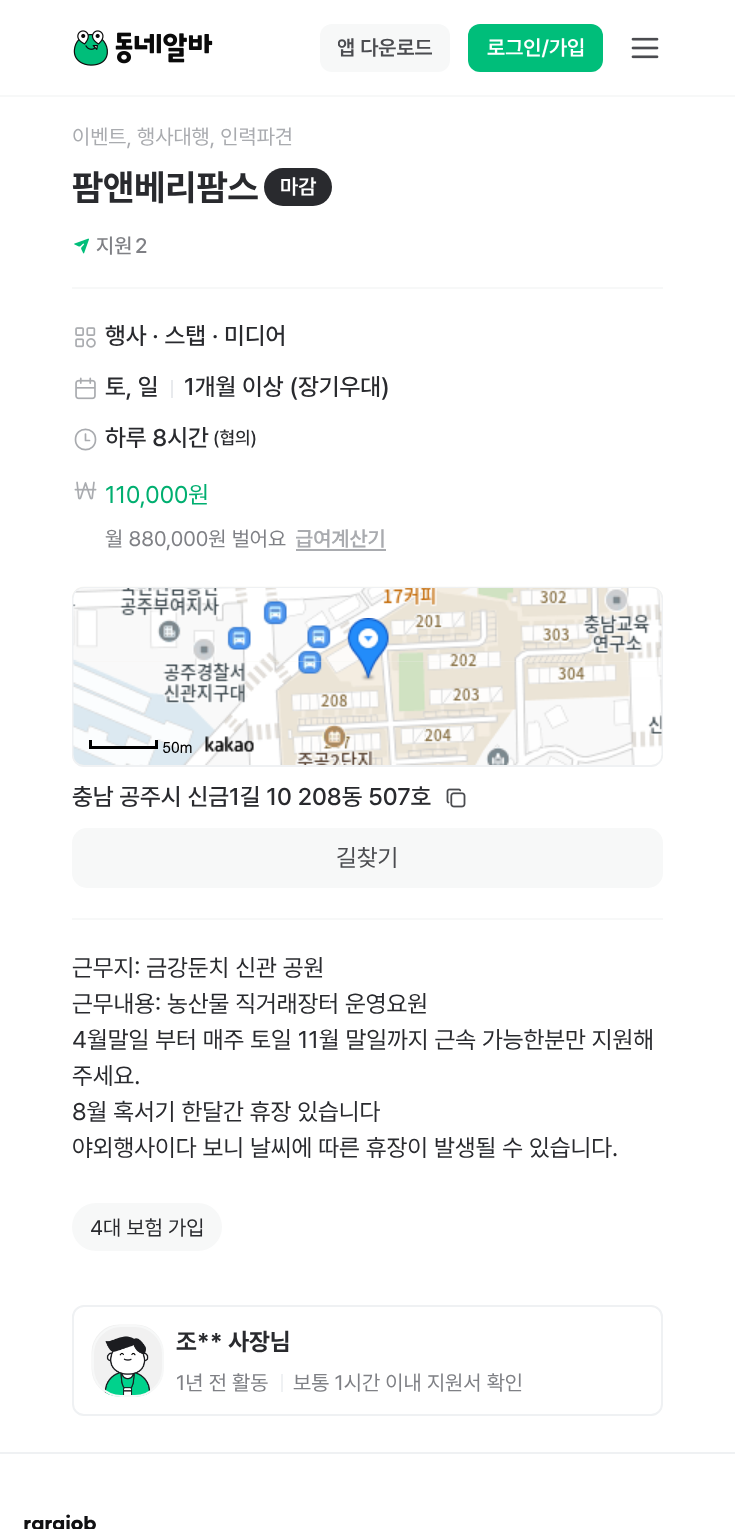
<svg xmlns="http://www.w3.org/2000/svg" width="735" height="1529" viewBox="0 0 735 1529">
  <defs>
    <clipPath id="clip1"><path d="M338 35h94v27H338z"/></clipPath>
    <clipPath id="clip2"><path d="M296 525h90v27H296z"/></clipPath>
  </defs>
  <rect width="100%" height="100%" fill="#fff"/>
  <path d="M0 95h735v2H0z" fill="#f7f8f8"/>
  <image x="73" y="30" width="140" height="36" href="img/1.png"/>
  <rect x="320" y="24" width="130" height="48" rx="12" fill="#f7f8f8"/>
  <rect x="468" y="24" width="135" height="48" rx="12" fill="#00be7a"/>
  <image x="631" y="37" width="28" height="22" href="img/2.png"/>
  <rect x="264" y="168" width="68" height="38" rx="19" fill="#292a2e"/>
  <image x="74" y="238" width="15" height="16" href="img/3.png"/>
  <path d="M72 287h591v2H72z" fill="#f7f8f8"/>
  <image x="75" y="327" width="21" height="21" href="img/4.png"/>
  <image x="75" y="377" width="21" height="23" href="img/5.png"/>
  <path d="M171 380h2v18H171z" fill="#e8eaed"/>
  <path d="M89.5 440.5H85.5V434M75.5 439.5C75.5 453 95.5 453 95.5 439.5C95.5 426 75.5 426 75.5 439.5" fill="none" stroke="#a9abaf" stroke-width="1.7" stroke-linecap="round" stroke-linejoin="round"/>
  <image x="74" y="481" width="23" height="19" href="img/6.png"/>
  <path d="M296 549h90v2H296z" fill="#a9abaf"/>
  <image x="72" y="586" width="591" height="181" href="img/7.png"/>
  <rect x="73" y="588" width="589" height="178" rx="11" fill="none" stroke="#eff1f3" stroke-width="2"/>
  <image x="73" y="661" width="353" height="104" href="img/10.png"/>
  <image x="73" y="588" width="353" height="74" href="img/8.png"/>
  <image x="426" y="661" width="236" height="104" href="img/11.png"/>
  <image x="426" y="588" width="236" height="74" href="img/9.png"/>
  <image x="347" y="618" width="42" height="63" href="img/12.png"/>
  <path d="M155 740h3v9H155z" fill="#000"/>
  <path d="M89 746h69v3H89z" fill="#000"/>
  <path d="M89 740h3v9H89z" fill="#000"/>
  <image x="205" y="736" width="49" height="16" href="img/13.png"/>
  <image x="446" y="788" width="20" height="20" href="img/14.png"/>
  <rect x="72" y="828" width="591" height="60" rx="15" fill="#f7f8f8"/>
  <path d="M72 918h591v2H72z" fill="#f7f8f8"/>
  <rect x="72" y="1203" width="150" height="48" rx="24" fill="#f7f8f8"/>
  <rect x="73" y="1306" width="589" height="109" rx="11" fill="none" stroke="#eff1f3" stroke-width="2"/>
  <image x="91" y="1324" width="73" height="73" href="img/15.png"/>
  <rect x="93" y="1326" width="70" height="70" rx="28" fill="none" stroke="#f7f8f8" stroke-width="2"/>
  <path d="M281 1374h2v18H281z" fill="#eff1f3"/>
  <path d="M0 1452h735v2H0z" fill="#eff1f3"/>
  <image x="24" y="1514" width="72" height="15" href="img/16.png"/>
  <g clip-path="url(#clip1)">
    <text x="337" y="55" font-family="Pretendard" font-size="21" font-weight="600" fill="#4b4c50">앱 다운로드</text>
  </g>
  <text x="487" y="55" font-family="Pretendard" font-size="21" font-weight="600" fill="#fff">로그인/가입</text>
  <text x="72" y="144" font-family="Pretendard" font-size="21" fill="#a9abaf">이벤트, 행사대행, 인력파견</text>
  <text x="72" y="200" font-family="Pretendard" font-size="36" font-weight="bold" fill="#292a2e">팜앤베리팜스</text>
  <text x="280" y="194" font-family="Pretendard" font-size="21" font-weight="600" fill="#fff">마감</text>
  <g font-family="Pretendard" font-size="21" font-weight="500" fill="#7f8085">
    <text x="96" y="253">지원</text>
    <text x="135" y="253">2</text>
  </g>
  <g font-family="Pretendard" font-size="24" font-weight="500" fill="#292a2e">
    <text x="105" y="344">행사 · 스탭 · 미디어</text>
    <text x="105" y="395">토, 일</text>
    <text x="184" y="395">1개월 이상 (장기우대)</text>
    <text x="105" y="446">하루 8시간</text>
  </g>
  <text x="213" y="444" font-family="Pretendard" font-size="18" font-weight="500" fill="#292a2e">(협의)</text>
  <text x="105" y="503" font-family="Pretendard" font-size="24" fill="#00af70">110,000원</text>
  <text x="105" y="546" font-family="Pretendard" font-size="21" fill="#7f8085">월 880,000원 벌어요</text>
  <g clip-path="url(#clip2)">
    <text x="295" y="546" font-family="Pretendard" font-size="21" font-weight="600" fill="#a9abaf">급여계산기</text>
  </g>
  <text x="162" y="753" font-family="Dotum" font-size="15" font-weight="bold" fill="#000">50m</text>
  <text x="72" y="805" font-family="Pretendard" font-size="24" font-weight="500" fill="#292a2e">충남 공주시 신금1길 10 208동 507호</text>
  <text x="336" y="866" font-family="Pretendard" font-size="24" fill="#4b4c50">길찾기</text>
  <g font-family="Pretendard" font-size="24" fill="#292a2e">
    <text x="72" y="976">근무지: 금강둔치 신관 공원</text>
    <text x="72" y="1012">근무내용: 농산물 직거래장터 운영요원</text>
    <text x="72" y="1048">4월말일 부터 매주 토일 11월 말일까지 근속 가능한분만 지원해</text>
    <text x="72" y="1084">주세요.</text>
    <text x="72" y="1120">8월 혹서기 한달간 휴장 있습니다</text>
    <text x="72" y="1156">야외행사이다 보니 날씨에 따른 휴장이 발생될 수 있습니다.</text>
  </g>
  <text x="90" y="1235" font-family="Pretendard" font-size="21" fill="#292a2e">4대 보험 가입</text>
  <text x="176" y="1350" font-family="Pretendard" font-size="24" font-weight="bold" fill="#292a2e">조** 사장님</text>
  <g font-family="Pretendard" font-size="21" fill="#7f8085">
    <text x="176" y="1390">1년 전 활동</text>
    <text x="293" y="1390">보통 1시간 이내 지원서 확인</text>
  </g>
</svg>
